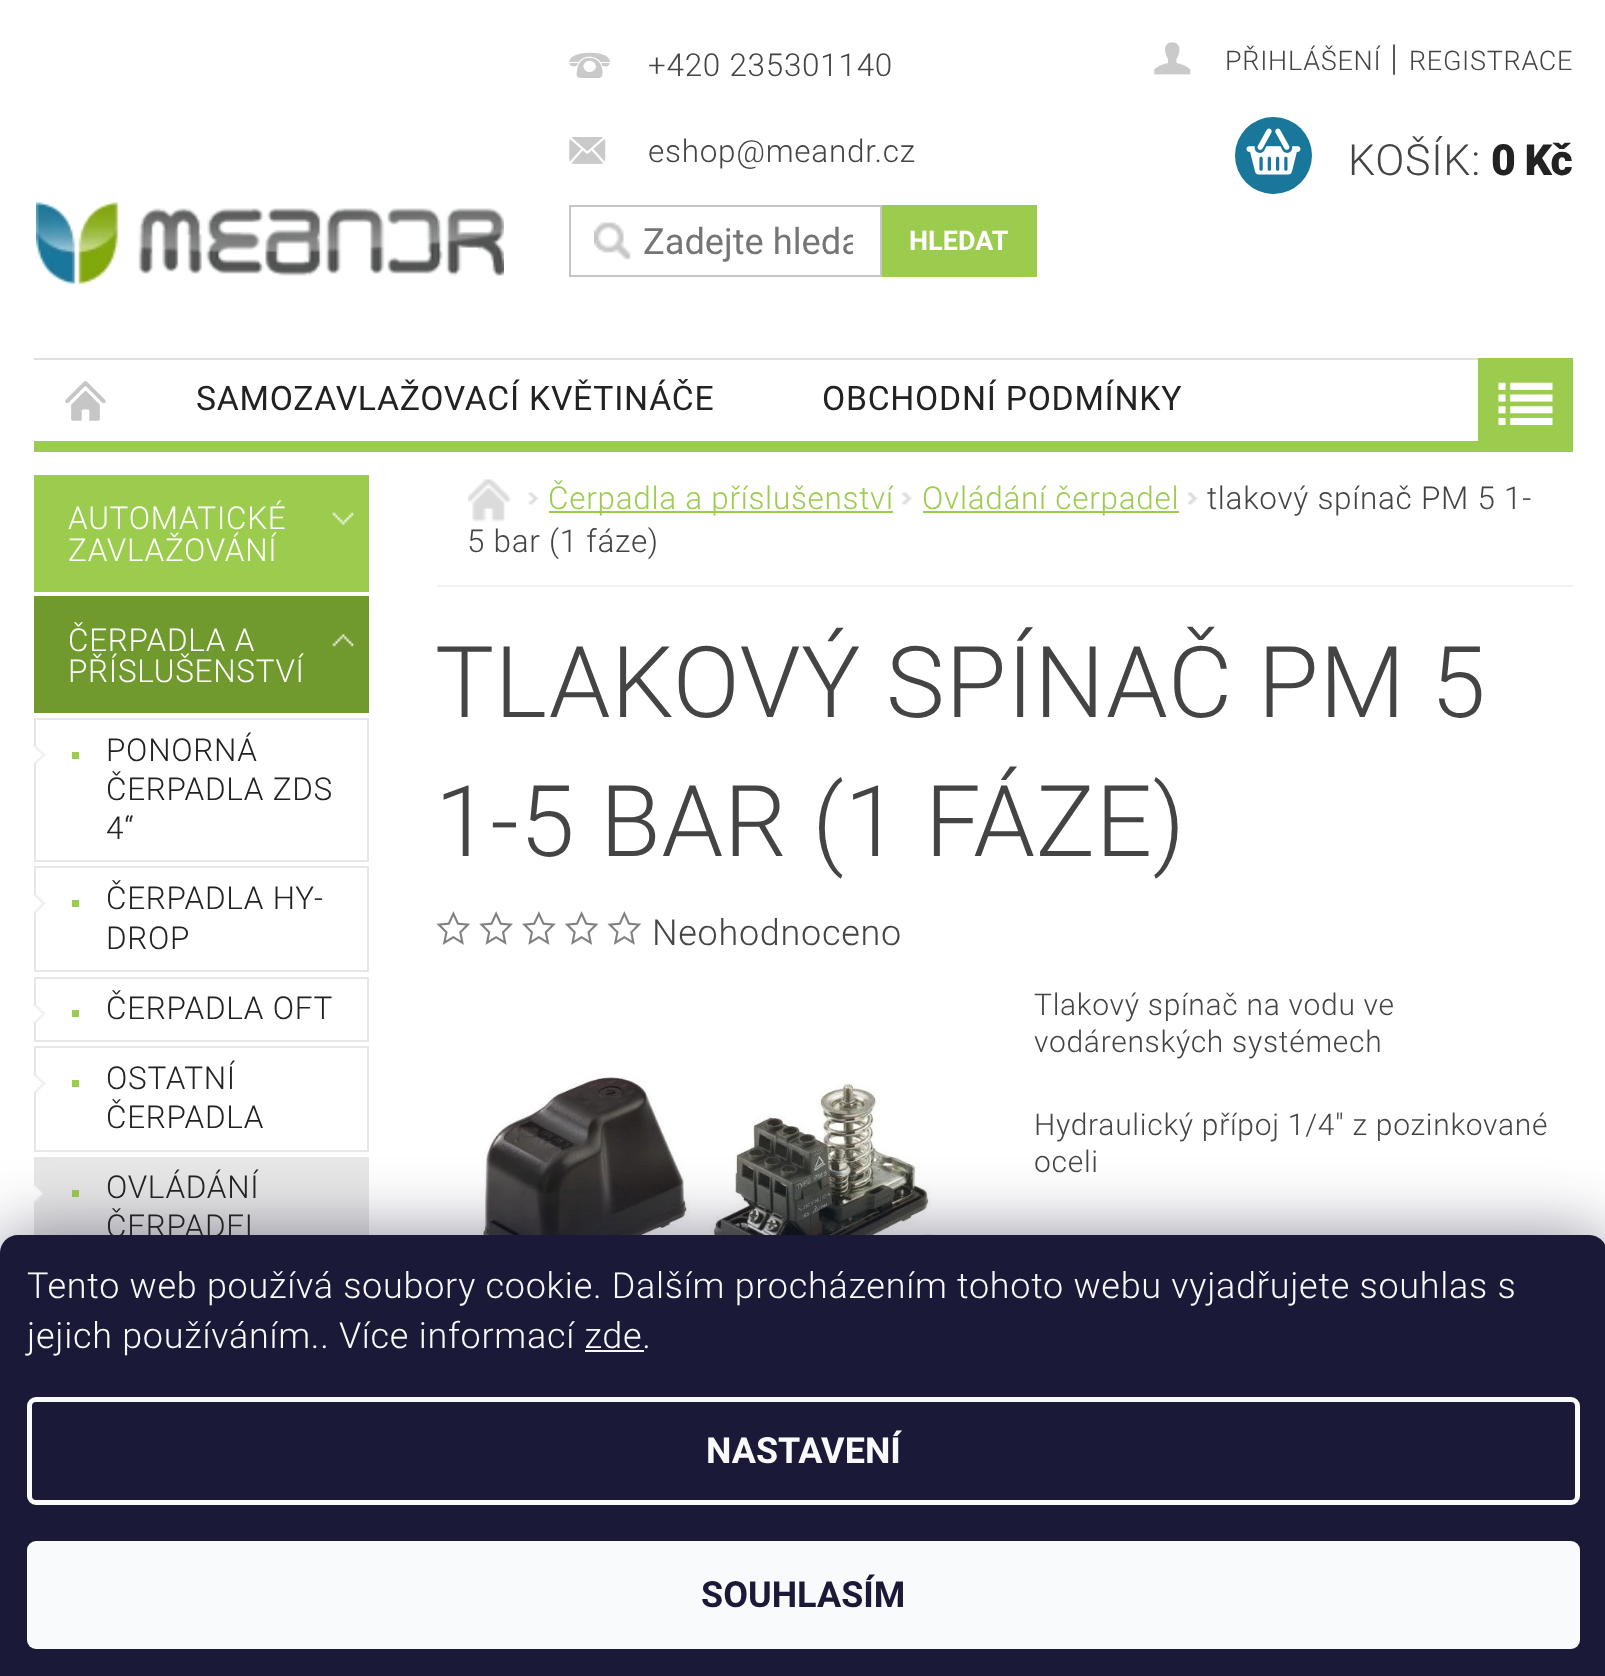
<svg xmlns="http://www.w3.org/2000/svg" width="1605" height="1676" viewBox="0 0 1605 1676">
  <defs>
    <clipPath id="clip1"><path d="M644 221h209v42H644z"/></clipPath>
  </defs>
  <rect width="100%" height="100%" fill="#fff"/>
  <path d="M34 441h1444v11H34z" fill="#9ccc4e"/>
  <image x="36" y="202" width="468" height="82" href="img/1.png"/>
  <image x="569" y="52" width="41" height="26" href="img/2.png"/>
  <image x="569" y="137" width="37" height="27" href="img/3.png"/>
  <image x="594" y="222" width="37" height="38" href="img/4.png"/>
  <path d="M570 206h311v70H570z" fill="none" stroke="#c6c6c6" stroke-width="2"/>
  <path d="M882 205h155v72H882z" fill="#9ccc4e"/>
  <image x="1154" y="42" width="37" height="33" href="img/5.png"/>
  <circle cx="1273.5" cy="155.5" r="38.5" fill="#19779b"/>
  <image x="1246" y="128" width="55" height="47" href="img/6.png"/>
  <path d="M34 358h1444v2H34z" fill="#e0e0e0"/>
  <image x="65" y="381" width="41" height="40" href="img/7.png"/>
  <path d="M1478 358h95v94H1478z" fill="#9ccc4e"/>
  <image x="1498" y="382" width="55" height="44" href="img/8.png"/>
  <path d="M34 475h335v117H34z" fill="#9ccc4e"/>
  <image x="332" y="512" width="22" height="13" href="img/9.png"/>
  <path d="M34 596h335v117H34z" fill="#709a2d"/>
  <image x="332" y="634" width="22" height="13" href="img/10.png"/>
  <path d="M35 719h333v142H35z" fill="none" stroke="#e7e7e7" stroke-width="2"/>
  <image x="33" y="745" width="13" height="20" href="img/11.png"/>
  <path d="M72 752h7v7H72z" fill="#9ccc4e"/>
  <path d="M35 867h333v104H35z" fill="none" stroke="#e7e7e7" stroke-width="2"/>
  <image x="33" y="893" width="13" height="21" href="img/12.png"/>
  <path d="M72 900h7v7H72z" fill="#9ccc4e"/>
  <path d="M35 978h333v63H35z" fill="none" stroke="#e7e7e7" stroke-width="2"/>
  <image x="33" y="1004" width="13" height="19" href="img/13.png"/>
  <path d="M72 1010h7v7H72z" fill="#9ccc4e"/>
  <path d="M35 1047h333v104H35z" fill="none" stroke="#e7e7e7" stroke-width="2"/>
  <image x="33" y="1073" width="13" height="21" href="img/12.png"/>
  <path d="M72 1080h7v7H72z" fill="#9ccc4e"/>
  <path d="M35 1158h333v101H35z" fill="none" stroke="#e7e7e7" stroke-width="2"/>
  <path d="M36 1159h331v76H36z" fill="#e7e7e7"/>
  <image x="33" y="1184" width="10" height="19" href="img/14.png"/>
  <path d="M72 1190h7v7H72z" fill="#9ccc4e"/>
  <path d="M437 585h1136v2H437z" fill="#f2f2f2"/>
  <image x="468" y="479" width="43" height="43" href="img/15.png"/>
  <image x="528" y="492" width="11" height="13" href="img/16.png"/>
  <path d="M549 511h344v2H549z" fill="#9ccc4e"/>
  <image x="902" y="492" width="10" height="13" href="img/17.png"/>
  <path d="M923 511h256v2H923z" fill="#9ccc4e"/>
  <image x="1188" y="492" width="10" height="13" href="img/18.png"/>
  <image x="436" y="911" width="35" height="34" href="img/19.png"/>
  <image x="479" y="911" width="34" height="34" href="img/20.png"/>
  <image x="522" y="911" width="34" height="34" href="img/21.png"/>
  <image x="564" y="911" width="35" height="34" href="img/22.png"/>
  <image x="607" y="911" width="35" height="34" href="img/19.png"/>
  <image x="481" y="1077" width="450" height="158" href="img/23.png"/>
  <image x="923" y="1234" width="12" height="1" href="img/24.png"/>
  <rect y="1235" width="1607" height="441" rx="18" fill="#1b193980" filter="blur(34px)"/>
  <g font-family="Roboto" font-size="31.5" font-weight="300" letter-spacing="0.72" fill="#444">
    <text x="648" y="76">+420 235301140</text>
    <text x="648" y="162">eshop@meandr.cz</text>
  </g>
  <g clip-path="url(#clip1)">
    <text x="643" y="254" font-family="Roboto" font-size="36.25" fill="#757575">Zadejte hleda</text>
  </g>
  <text x="909" y="250" font-family="Roboto" font-size="27" font-weight="bold" fill="#fff">HLEDAT</text>
  <text x="1225" y="70" font-family="Roboto" font-size="27" font-weight="300" letter-spacing="0.72" fill="#444">PŘIHLÁŠENÍ</text>
  <text x="1390" y="70" font-family="Roboto" font-size="36" font-weight="300" letter-spacing="0.72" fill="#444">|</text>
  <text x="1409" y="70" font-family="Roboto" font-size="27" font-weight="300" letter-spacing="0.72" fill="#444">REGISTRACE</text>
  <text x="1348" y="175" font-family="Roboto" font-size="43" font-weight="300" letter-spacing="0.72" fill="#444">KOŠÍK:</text>
  <text x="1491" y="175" font-family="Roboto" font-size="43" font-weight="900" letter-spacing="-1" fill="#222">0 Kč</text>
  <g font-family="Roboto" font-size="33.75" letter-spacing="0.72" fill="#222">
    <text x="196" y="410">SAMOZAVLAŽOVACÍ KVĚTINÁČE</text>
    <text x="822" y="410">OBCHODNÍ PODMÍNKY</text>
  </g>
  <g font-family="Roboto" font-size="31.5" font-weight="300" letter-spacing="0.72" fill="#fff">
    <text x="68" y="529">AUTOMATICKÉ</text>
    <text x="68" y="561">ZAVLAŽOVÁNÍ</text>
    <text x="68" y="651">ČERPADLA A</text>
    <text x="68" y="682">PŘÍSLUŠENSTVÍ</text>
  </g>
  <g font-family="Roboto" font-size="31.5" font-weight="300" letter-spacing="0.72" fill="#222">
    <text x="106" y="761">PONORNÁ</text>
    <text x="106" y="800">ČERPADLA ZDS</text>
    <text x="106" y="839">4“</text>
    <text x="106" y="909">ČERPADLA HY-</text>
    <text x="106" y="949">DROP</text>
    <text x="106" y="1019">ČERPADLA OFT</text>
    <text x="106" y="1089">OSTATNÍ</text>
    <text x="106" y="1128">ČERPADLA</text>
    <text x="106" y="1198">OVLÁDÁNÍ</text>
    <text x="106" y="1237">ČERPADEL</text>
  </g>
  <g font-family="Roboto" font-size="31.5" font-weight="300" letter-spacing="0.72" fill="#9ccc4e">
    <text x="548" y="509">Čerpadla a příslušenství</text>
    <text x="922" y="509">Ovládání čerpadel</text>
  </g>
  <g font-family="Roboto" font-size="31.5" font-weight="300" letter-spacing="0.72" fill="#444">
    <text x="1207" y="509">tlakový spínač PM 5 1-</text>
    <text x="467" y="552">5 bar (1 fáze)</text>
  </g>
  <g font-family="Roboto" font-size="99" font-weight="300" letter-spacing="0.72" fill="#444">
    <text x="435" y="717">TLAKOVÝ SPÍNAČ PM 5</text>
    <text x="435" y="856">1-5 BAR (1 FÁZE)</text>
  </g>
  <text x="652" y="945" font-family="Roboto" font-size="36" font-weight="300" letter-spacing="0.72" fill="#444">Neohodnoceno</text>
  <g font-family="Roboto" font-size="30" font-weight="300" letter-spacing="0.72" fill="#444">
    <text x="1034" y="1015">Tlakový spínač na vodu ve</text>
    <text x="1034" y="1052">vodárenských systémech</text>
    <text x="1034" y="1135">Hydraulický přípoj 1/4" z pozinkované</text>
    <text x="1034" y="1172">oceli</text>
  </g>
  <path d="M18 1235H1589C1599 1235 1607 1243 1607 1253V1676H0V1253C0 1243 8 1235 18 1235Z" fill="#1a1937"/>
  <g font-family="Roboto" font-size="36" font-weight="300" letter-spacing="0.72" fill="#f8fafb">
    <text x="27" y="1298">Tento web používá soubory cookie. Dalším procházením tohoto webu vyjadřujete souhlas s</text>
    <text x="27" y="1348">jejich používáním.. Více informací zde.</text>
  </g>
  <path d="M585 1350h59v2H585z" fill="#f8fafb"/>
  <rect x="29.5" y="1399.5" width="1548" height="103" rx="6.5" fill="none" stroke="#f8fafb" stroke-width="5"/>
  <text x="706" y="1463" font-family="Roboto" font-size="36" font-weight="bold" fill="#f8fafb">NASTAVENÍ</text>
  <rect x="27" y="1541" width="1553" height="108" rx="9" fill="#f8fafb"/>
  <text x="701" y="1607" font-family="Roboto" font-size="36" font-weight="bold" fill="#1a1937">SOUHLASÍM</text>
</svg>
